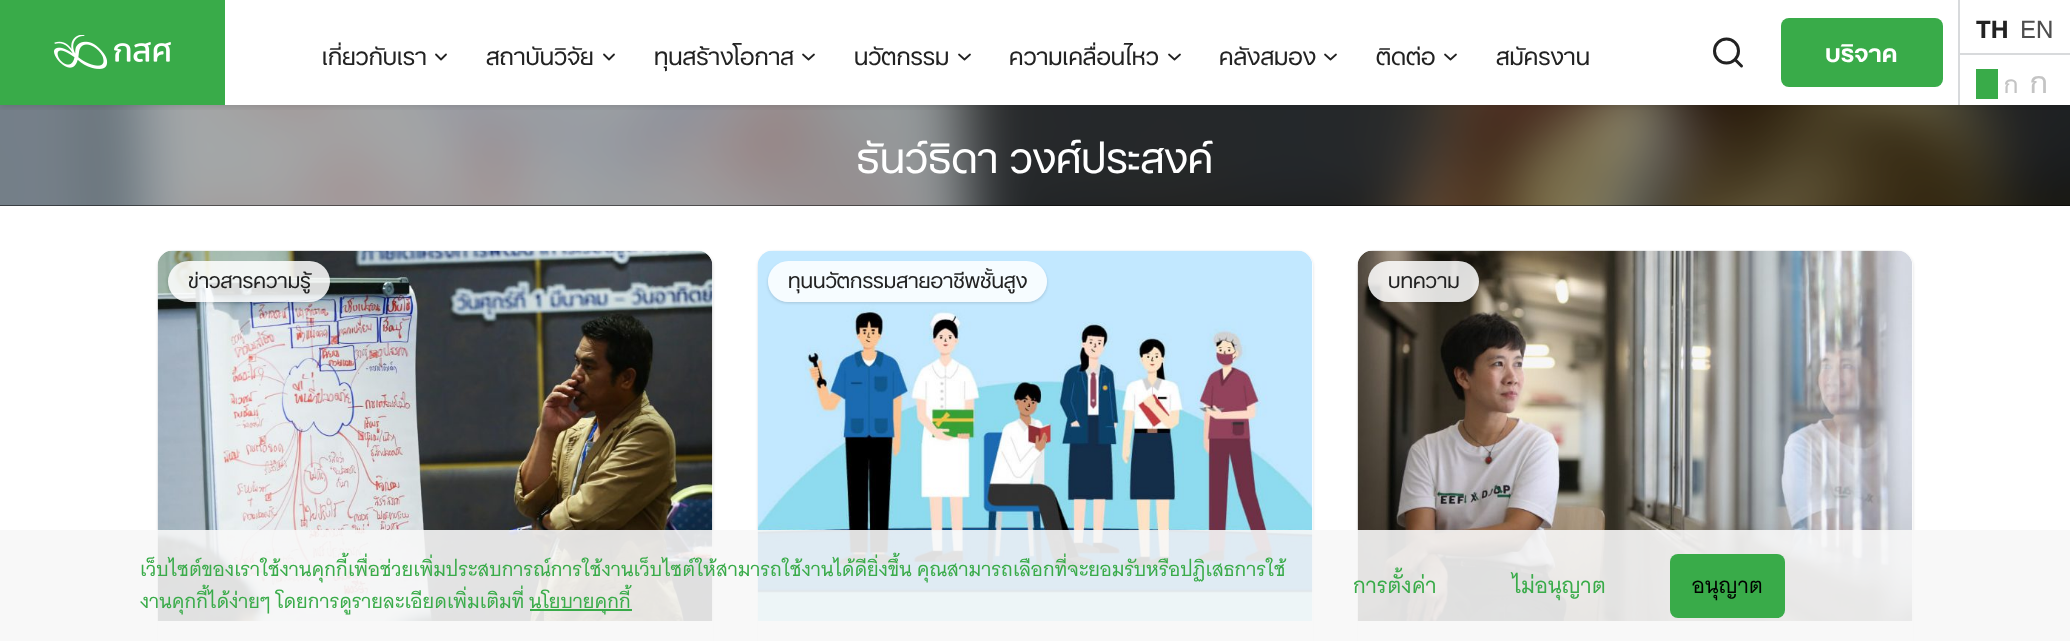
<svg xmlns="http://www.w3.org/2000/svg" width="2070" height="641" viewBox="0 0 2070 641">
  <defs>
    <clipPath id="clip1"><path d="M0 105h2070v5H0z"/></clipPath>
    <clipPath id="clip2"><path d="M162 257H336V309H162ZM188.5 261H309.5C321 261 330 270 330 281.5C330 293 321 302 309.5 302H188.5C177 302 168 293 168 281.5C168 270 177 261 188.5 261Z" clip-rule="evenodd"/></clipPath>
    <clipPath id="clip3"><path d="M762 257H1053V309H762ZM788.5 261H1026.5C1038 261 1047 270 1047 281.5C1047 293 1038 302 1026.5 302H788.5C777 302 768 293 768 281.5C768 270 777 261 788.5 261Z" clip-rule="evenodd"/></clipPath>
    <clipPath id="clip4"><path d="M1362 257H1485V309H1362ZM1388.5 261H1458.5C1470 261 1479 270 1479 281.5C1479 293 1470 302 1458.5 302H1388.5C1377 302 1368 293 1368 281.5C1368 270 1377 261 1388.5 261Z" clip-rule="evenodd"/></clipPath>
  </defs>
  <rect width="100%" height="100%" fill="#fff"/>
  <path d="M0 105h2070v101H0z" fill="#000"/>
  <image x="0" y="105" width="2070" height="101" href="img/2.png"/>
  <g clip-path="url(#clip1)">
    <path d="M0 2h2070v105H0z" fill="#0000001a" filter="blur(3px)"/>
  </g>
  <path d="M0 0h225v105H0z" fill="#39ab49"/>
  <image x="54" y="35" width="117" height="34" href="img/1.png"/>
  <path d="M436 54.5L441 59.5L446 54.5" fill="none" stroke="#222" stroke-width="1.8" stroke-linecap="round" stroke-linejoin="round"/>
  <path d="M604 54.5L609 59.5L614 54.5" fill="none" stroke="#222" stroke-width="1.8" stroke-linecap="round" stroke-linejoin="round"/>
  <path d="M803 54.5L808.5 59.5L814 54.5" fill="none" stroke="#222" stroke-width="1.8" stroke-linecap="round" stroke-linejoin="round"/>
  <path d="M959 54.5L964.5 59.5L970 54.5" fill="none" stroke="#222" stroke-width="1.8" stroke-linecap="round" stroke-linejoin="round"/>
  <path d="M1169 54.5L1174.5 59.5L1180 54.5" fill="none" stroke="#222" stroke-width="1.8" stroke-linecap="round" stroke-linejoin="round"/>
  <path d="M1325 54.5L1330.5 59.5L1336 54.5" fill="none" stroke="#222" stroke-width="1.8" stroke-linecap="round" stroke-linejoin="round"/>
  <path d="M1445 54.5L1450.5 59.5L1456 54.5" fill="none" stroke="#222" stroke-width="1.8" stroke-linecap="round" stroke-linejoin="round"/>
  <circle cx="1726.5" cy="51" r="12" fill="none" stroke="#222" stroke-width="3"/>
  <path d="M1741.5 66L1735 59.5" fill="none" stroke="#222" stroke-width="3" stroke-linecap="round" stroke-linejoin="round"/>
  <rect x="1781" y="18" width="162" height="69" rx="8" fill="#39ab49"/>
  <path d="M1958 0h2v105H1958z" fill="#d8dadc"/>
  <path d="M1959 53h111v2H1959z" fill="#d8dadc"/>
  <path d="M1976 69h22v30H1976z" fill="#39ab49"/>
  <rect x="158" y="252" width="555" height="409" rx="15" fill="#0000001f" filter="blur(1.5px)"/>
  <rect x="158" y="251" width="555" height="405" rx="15" fill="#fff"/>
  <image x="157" y="250" width="556" height="371" href="img/3.png"/>
  <g clip-path="url(#clip2)">
    <rect x="168" y="263" width="162" height="40" rx="20" fill="#00000026" filter="blur(1.5px)"/>
  </g>
  <rect x="168" y="261" width="162" height="41" rx="20.5" fill="#ffffffd9"/>
  <rect x="758" y="252" width="555" height="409" rx="15" fill="#0000001f" filter="blur(1.5px)"/>
  <rect x="758" y="251" width="555" height="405" rx="15" fill="#fff"/>
  <image x="757" y="250" width="556" height="371" href="img/4.png"/>
  <g clip-path="url(#clip3)">
    <rect x="768" y="263" width="279" height="40" rx="20" fill="#00000026" filter="blur(1.5px)"/>
  </g>
  <rect x="768" y="261" width="279" height="41" rx="20.5" fill="#ffffffd9"/>
  <rect x="1358" y="252" width="555" height="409" rx="15" fill="#0000001f" filter="blur(1.5px)"/>
  <rect x="1358" y="251" width="555" height="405" rx="15" fill="#fff"/>
  <image x="1357" y="250" width="556" height="371" href="img/5.png"/>
  <g clip-path="url(#clip4)">
    <rect x="1368" y="263" width="111" height="40" rx="20" fill="#00000026" filter="blur(1.5px)"/>
  </g>
  <rect x="1368" y="261" width="111" height="41" rx="20.5" fill="#ffffffd9"/>
  <path d="M0 530h2070v111H0z" fill="#f7f7f7e6"/>
  <path d="M530 609h102v2H530z" fill="#39ab49"/>
  <rect x="1670" y="554" width="115" height="64" rx="8" fill="#39ab49"/>
  <g font-family="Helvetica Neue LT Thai" font-size="24" fill="#222">
    <text x="322" y="65">เกี่ยวกับเรา</text>
    <text x="486" y="65">สถาบันวิจัย</text>
    <text x="654" y="65">ทุนสร้างโอกาส</text>
    <text x="854" y="65">นวัตกรรม</text>
    <text x="1009" y="65">ความเคลื่อนไหว</text>
    <text x="1219" y="65">คลังสมอง</text>
    <text x="1376" y="65">ติดต่อ</text>
    <text x="1496" y="65">สมัครงาน</text>
  </g>
  <text x="1825" y="62" font-family="Helvetica Neue LT Thai" font-size="24" font-weight="bold" fill="#fff">บริจาค</text>
  <text x="1976" y="38" font-family="Helvetica Neue LT Thai" font-size="24" font-weight="bold" fill="#222">TH</text>
  <text x="2020" y="38" font-family="Helvetica Neue LT Thai" font-size="24" fill="#4e4e4e">EN</text>
  <text x="2004" y="93" font-family="Helvetica Neue LT Thai" font-size="24" fill="#c4c4c4">ก</text>
  <text x="2030" y="93" font-family="Helvetica Neue LT Thai" font-size="30" fill="#c4c4c4">ก</text>
  <text x="856" y="173" font-family="Helvetica Neue LT Thai" font-size="42" fill="#fff">ธันว์ธิดา วงศ์ประสงค์</text>
  <g font-family="Helvetica Neue LT Thai" font-size="21" fill="#222">
    <text x="188" y="288">ข่าวสารความรู้</text>
    <text x="788" y="288">ทุนนวัตกรรมสายอาชีพชั้นสูง</text>
    <text x="1388" y="288">บทความ</text>
  </g>
  <g font-family="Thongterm" font-size="19.2" fill="#39ab49">
    <text x="140" y="576">เว็บไซต์ของเราใช้งานคุกกี้เพื่อช่วยเพิ่มประสบการณ์การใช้งานเว็บไซต์ให้สามารถใช้งานได้ดียิ่งขึ้น คุณสามารถเลือกที่จะยอมรับหรือปฏิเสธการใช้</text>
    <text x="140" y="608">งานคุกกี้ได้ง่ายๆ โดยการดูรายละเอียดเพิ่มเติมที่</text>
    <text x="529" y="608">นโยบายคุกกี้</text>
  </g>
  <g font-family="Thongterm" font-size="21" fill="#39ab49">
    <text x="1353" y="593">การตั้งค่า</text>
    <text x="1512" y="593">ไม่อนุญาต</text>
  </g>
  <text x="1692" y="593" font-family="Thongterm" font-size="21" fill="#000">อนุญาต</text>
</svg>
